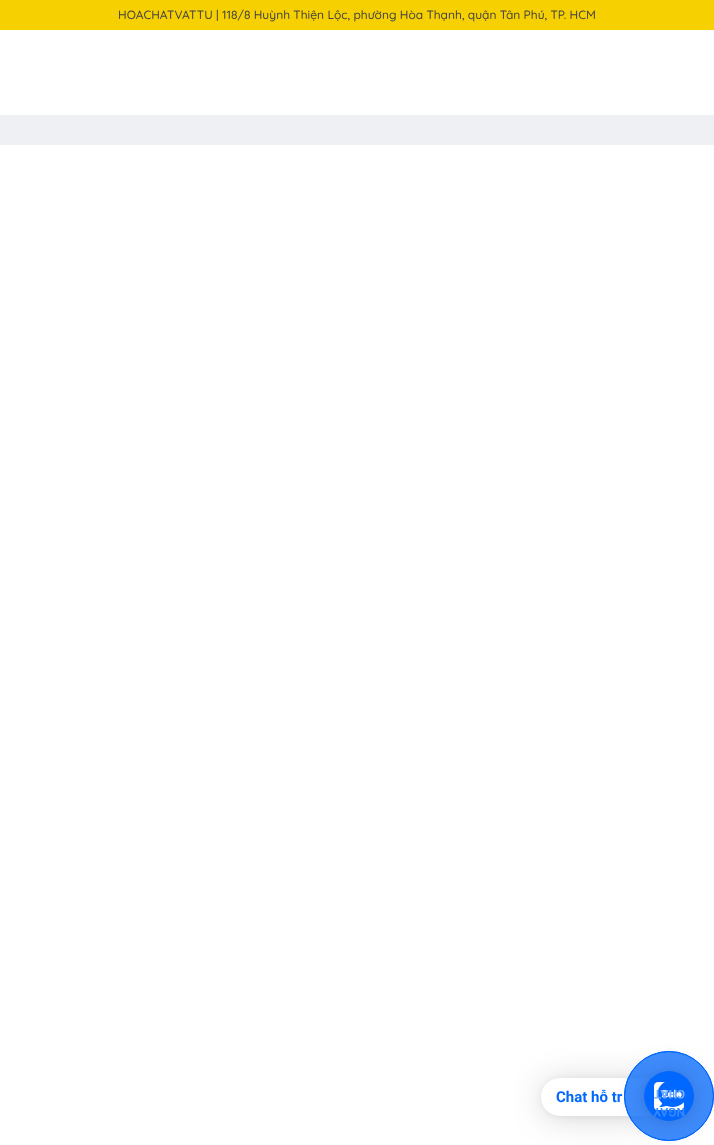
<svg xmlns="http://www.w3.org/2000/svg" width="714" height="1145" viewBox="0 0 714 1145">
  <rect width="100%" height="100%" fill="#fff"/>
  <path d="M0 0h714v30H0z" fill="#f7d001"/>
  <path d="M0 115h714v30H0z" fill="#eff0f3"/>
  <rect x="541" y="1080" width="115" height="38" rx="19" fill="#00000029" filter="blur(16px)"/>
  <rect x="541" y="1079" width="115" height="38" rx="19" fill="#0000000f" filter="blur(3px)"/>
  <path d="M560 1078H656V1116H560C549.5 1116 541 1107.5 541 1097C541 1086.5 549.5 1078 560 1078Z" fill="#fff"/>
  <circle cx="669" cy="1096" r="44.5" fill="#0068ff80" stroke="#0068ff"/>
  <circle cx="669" cy="1096" r="44.5" fill="#0068ff80" stroke="#0068ff"/>
  <rect x="644" y="1073" width="50" height="50" rx="25" fill="#00000029" filter="blur(16px)"/>
  <rect x="644" y="1072" width="50" height="50" rx="25" fill="#0000000f" filter="blur(3px)"/>
  <circle cx="669" cy="1096" r="25" fill="#0068ff"/>
  <image x="654" y="1082" width="30" height="28" href="img/1.png"/>
  <text x="118" y="19" font-family="Quicksand" font-size="12" font-weight="500" fill="#424242">HOACHATVATTU | 118/8 Huỳnh Thiện Lộc, phường Hòa Thạnh, quận Tân Phú, TP. HCM</text>
  <text x="556" y="1102" font-family="Roboto" font-size="15" font-weight="bold" fill="#0068ff">Chat hỗ tr</text>
  <text x="685" y="1090" transform="rotate(180 685 1090)" font-family="Roboto" font-size="12" font-weight="bold" fill="#76aeff">CHAT</text>
  <text x="685" y="1108" transform="rotate(180 685 1108)" font-family="Roboto" font-size="12" font-weight="bold" fill="#3788ff">NGAY</text>
</svg>
